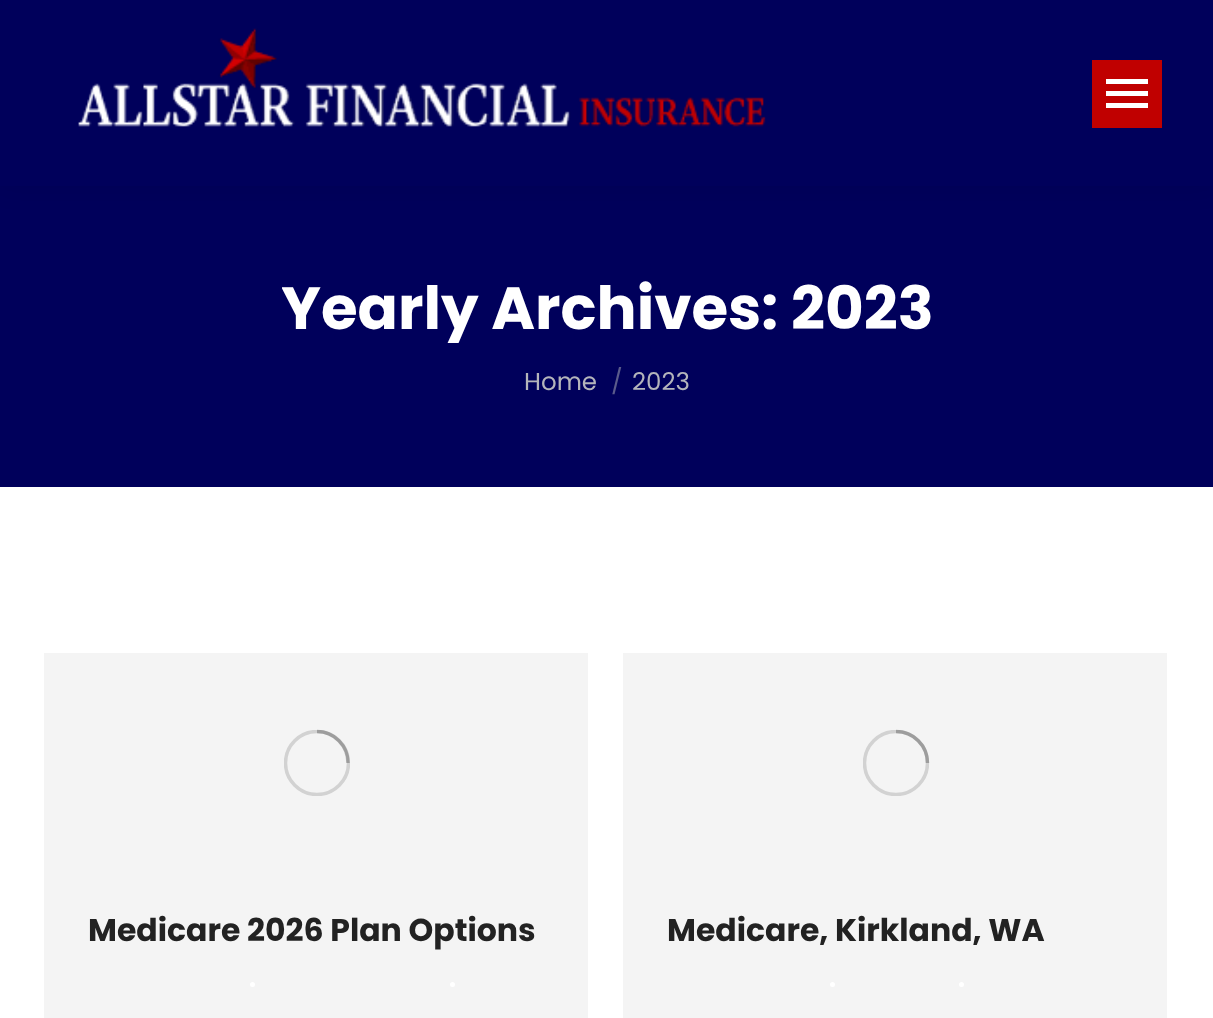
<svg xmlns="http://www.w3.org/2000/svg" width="1213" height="1018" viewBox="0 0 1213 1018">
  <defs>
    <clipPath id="clip1"><path d="M284 730h66v66H284z"/></clipPath>
    <clipPath id="clip2"><path d="M863 730h66v66H863z"/></clipPath>
    <clipPath id="clip3"><path d="M282 273h651v70H282z"/></clipPath>
  </defs>
  <rect width="100%" height="100%" fill="#fff"/>
  <path d="M0 186h1213v301H0z" fill="#00005b"/>
  <path d="M-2 -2h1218v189H-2z" fill="#00000012" filter="blur(13px)"/>
  <path d="M0 0h1213v186H0z" fill="#00005b"/>
  <image x="78" y="28" width="688" height="99" href="img/1.png"/>
  <path d="M1092 60h70v68H1092z" fill="#c00000"/>
  <path d="M1106 79h42v5H1106z" fill="#fff"/>
  <path d="M1106 91h42v5H1106z" fill="#fff"/>
  <path d="M1106 103h42v5H1106z" fill="#fff"/>
  <path d="M44 653h544v365H44z" fill="#f4f4f4"/>
  <g clip-path="url(#clip1)">
    <circle cx="317" cy="763" r="31.5" fill="none" stroke="#d2d2d2" stroke-width="3.5"/>
  </g>
  <path d="M348 763C348 745.5 334 731.5 317 731.5" fill="none" stroke="#00000040" stroke-width="3.5"/>
  <circle cx="252.5" cy="984.5" r="2.5" fill="#fff"/>
  <circle cx="452.5" cy="984.5" r="2.5" fill="#fff"/>
  <path d="M623 653h544v365H623z" fill="#f4f4f4"/>
  <g clip-path="url(#clip2)">
    <circle cx="896" cy="763" r="31.5" fill="none" stroke="#d2d2d2" stroke-width="3.5"/>
  </g>
  <path d="M927.5 763C927.5 745.5 913.5 731.5 896 731.5" fill="none" stroke="#00000040" stroke-width="3.5"/>
  <circle cx="832.5" cy="984.5" r="2.5" fill="#fff"/>
  <circle cx="961.5" cy="984.5" r="2.5" fill="#fff"/>
  <g clip-path="url(#clip3)">
    <text x="281" y="329" font-family="Poppins" font-size="59.5" font-weight="bold" fill="#fff">Yearly Archives:</text>
  </g>
  <text x="791" y="329" font-family="Poppins" font-size="59.5" font-weight="bold" fill="#fff">2023</text>
  <text x="524" y="390" font-family="Poppins" font-size="24.5" fill="#b4b5bb">Home</text>
  <text x="611" y="390" font-family="Poppins" font-size="24.5" fill="#5a5b8b">/</text>
  <text x="632" y="390" font-family="Poppins" font-size="24.5" fill="#b4b5bb">2023</text>
  <g font-family="Poppins" font-size="31.5" font-weight="bold" fill="#222">
    <text x="88" y="941">Medicare 2026 Plan Options</text>
    <text x="667" y="941">Medicare, Kirkland, WA</text>
  </g>
</svg>
